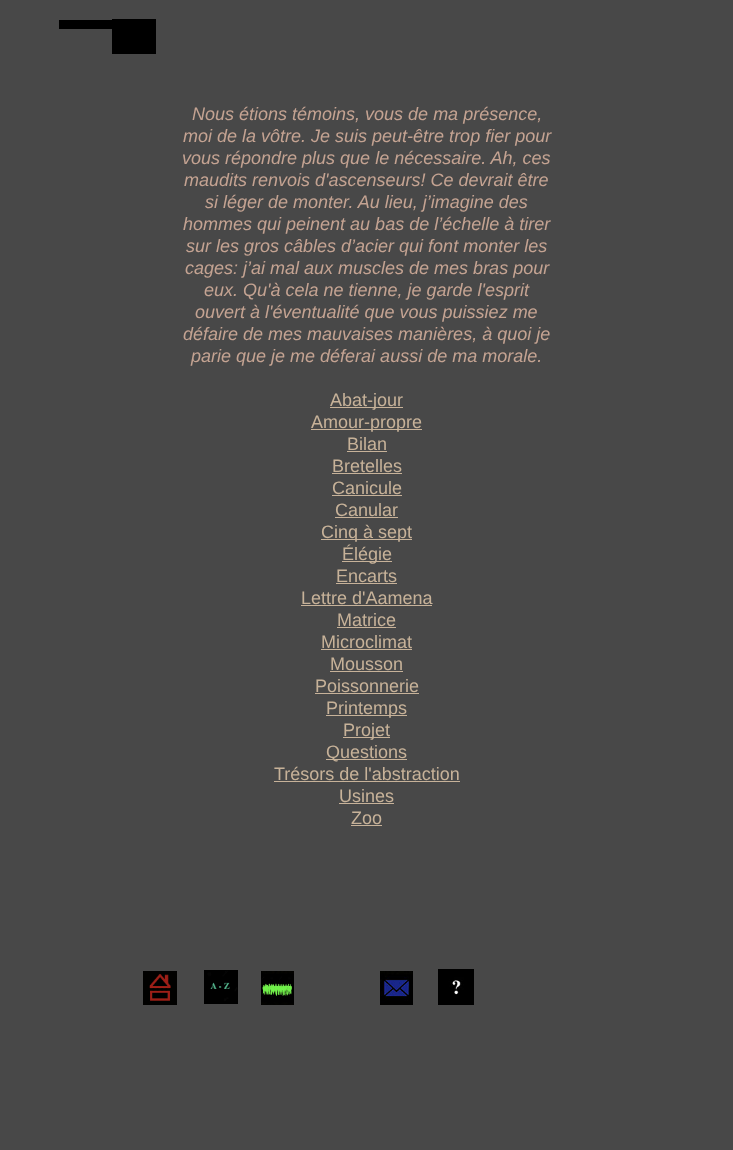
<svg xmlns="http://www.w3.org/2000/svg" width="733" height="1150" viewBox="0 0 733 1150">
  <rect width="100%" height="100%" fill="#484848"/>
  <path d="M59 20h53v9H59z" fill="#000"/>
  <path d="M112 19h44v35H112z" fill="#000"/>
  <path d="M330 407h73v1H330z" fill="#c7b299"/>
  <path d="M311 429h111v1H311z" fill="#c7b299"/>
  <path d="M347 451h40v1H347z" fill="#c7b299"/>
  <path d="M332 473h70v1H332z" fill="#c7b299"/>
  <path d="M332 495h70v1H332z" fill="#c7b299"/>
  <path d="M335 517h63v1H335z" fill="#c7b299"/>
  <path d="M321 539h91v1H321z" fill="#c7b299"/>
  <path d="M342 561h50v1H342z" fill="#c7b299"/>
  <path d="M336 583h61v1H336z" fill="#c7b299"/>
  <path d="M301 605h131v1H301z" fill="#c7b299"/>
  <path d="M337 627h59v1H337z" fill="#c7b299"/>
  <path d="M321 649h91v1H321z" fill="#c7b299"/>
  <path d="M330 671h73v1H330z" fill="#c7b299"/>
  <path d="M315 693h104v1H315z" fill="#c7b299"/>
  <path d="M326 715h81v1H326z" fill="#c7b299"/>
  <path d="M343 737h47v1H343z" fill="#c7b299"/>
  <path d="M326 759h81v1H326z" fill="#c7b299"/>
  <path d="M274 781h186v1H274z" fill="#c7b299"/>
  <path d="M339 803h55v1H339z" fill="#c7b299"/>
  <path d="M351 825h31v1H351z" fill="#c7b299"/>
  <image x="143" y="971" width="34" height="34" href="img/1.png"/>
  <image x="204" y="970" width="34" height="34" href="img/2.png"/>
  <image x="261" y="971" width="33" height="34" href="img/3.png"/>
  <image x="380" y="971" width="33" height="34" href="img/4.png"/>
  <image x="438" y="969" width="36" height="36" href="img/5.png"/>
  <g font-family="Liberation Sans" font-size="18" font-style="italic" fill="#c4a392">
    <text x="192" y="120">Nous étions témoins, vous de ma présence,</text>
    <text x="183" y="142">moi de la vôtre. Je suis peut-être trop fier pour</text>
    <text x="182" y="164">vous répondre plus que le nécessaire. Ah, ces</text>
    <text x="184" y="186">maudits renvois d'ascenseurs! Ce devrait être</text>
    <text x="205" y="208">si léger de monter. Au lieu, j’imagine des</text>
    <text x="183" y="230">hommes qui peinent au bas de l’échelle à tirer</text>
    <text x="186" y="252">sur les gros câbles d’acier qui font monter les</text>
    <text x="185" y="274">cages: j’ai mal aux muscles de mes bras pour</text>
    <text x="204" y="296">eux. Qu'à cela ne tienne, je garde l'esprit</text>
    <text x="195" y="318">ouvert à l'éventualité que vous puissiez me</text>
    <text x="183" y="340">défaire de mes mauvaises manières, à quoi je</text>
    <text x="191" y="362">parie que je me déferai aussi de ma morale.</text>
  </g>
  <g font-family="Liberation Sans" font-size="18" fill="#c7b299">
    <text x="330" y="406">Abat-jour</text>
    <text x="311" y="428">Amour-propre</text>
    <text x="347" y="450">Bilan</text>
    <text x="332" y="472">Bretelles</text>
    <text x="332" y="494">Canicule</text>
    <text x="335" y="516">Canular</text>
    <text x="321" y="538">Cinq à sept</text>
    <text x="342" y="560">Élégie</text>
    <text x="336" y="582">Encarts</text>
    <text x="301" y="604">Lettre d'Aamena</text>
    <text x="337" y="626">Matrice</text>
    <text x="321" y="648">Microclimat</text>
    <text x="330" y="670">Mousson</text>
    <text x="315" y="692">Poissonnerie</text>
    <text x="326" y="714">Printemps</text>
    <text x="343" y="736">Projet</text>
    <text x="326" y="758">Questions</text>
    <text x="274" y="780">Trésors de l'abstraction</text>
    <text x="339" y="802">Usines</text>
    <text x="351" y="824">Zoo</text>
  </g>
</svg>
